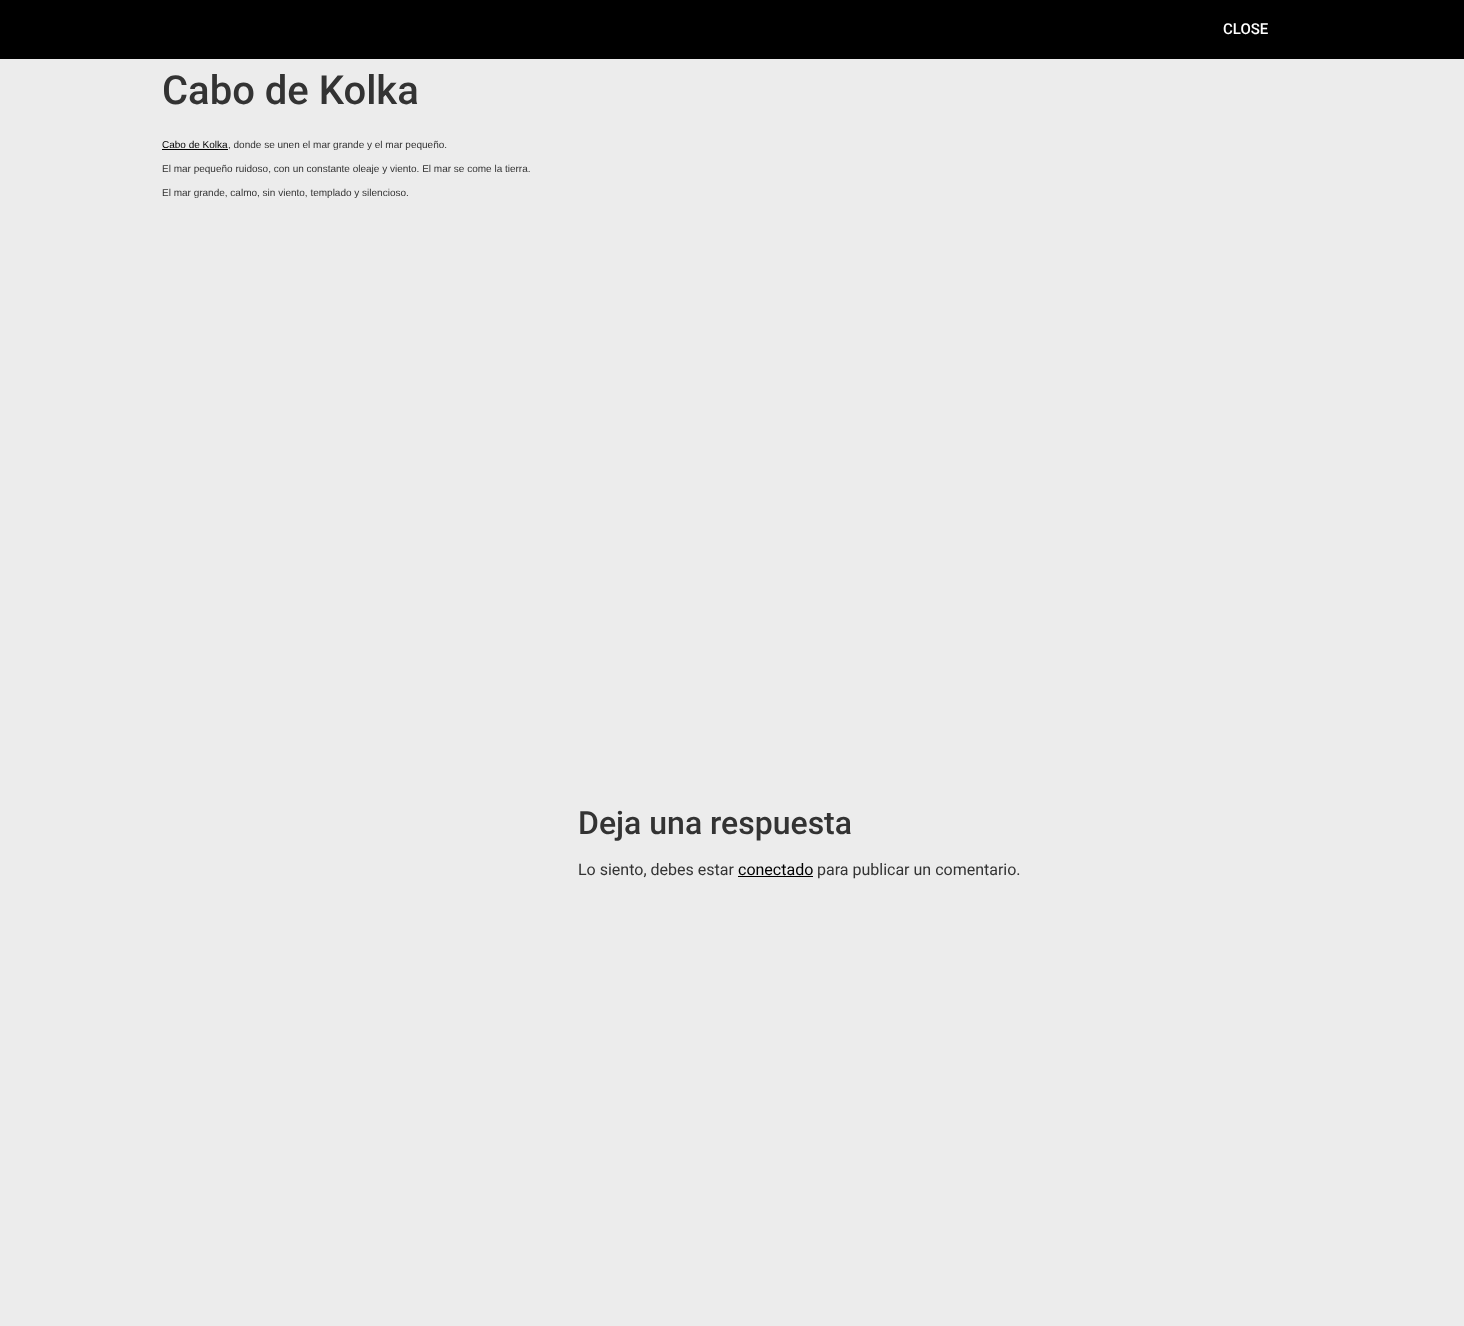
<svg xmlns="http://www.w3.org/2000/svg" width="1464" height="1326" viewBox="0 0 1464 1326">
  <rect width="100%" height="100%" fill="#ececec"/>
  <path d="M0 0h1464v59H0z" fill="#000"/>
  <path d="M162 149h66v1H162z" fill="#000"/>
  <path d="M738 876h75v1H738z" fill="#000"/>
  <text x="1223" y="34" font-family="Roboto" font-size="15" font-weight="500" fill="#fff">CLOSE</text>
  <text x="162" y="104" font-family="Roboto" font-size="40" font-weight="500" fill="#333">Cabo de Kolka</text>
  <text x="162" y="148" font-family="Liberation Sans" font-size="10" fill="#000">Cabo de Kolka</text>
  <g font-family="Liberation Sans" font-size="10" fill="#333">
    <text x="228" y="148">, donde se unen el mar grande y el mar pequeño.</text>
    <text x="162" y="172">El mar pequeño ruidoso, con un constante oleaje y viento. El mar se come la tierra.</text>
    <text x="162" y="196">El mar grande, calmo, sin viento, templado y silencioso.</text>
  </g>
  <text x="578" y="834" font-family="Roboto" font-size="32" font-weight="500" fill="#333">Deja una respuesta</text>
  <text x="578" y="875" font-family="Roboto" font-size="16" fill="#333">Lo siento, debes estar</text>
  <text x="738" y="875" font-family="Roboto" font-size="16" fill="#000">conectado</text>
  <text x="817" y="875" font-family="Roboto" font-size="16" fill="#333">para publicar un comentario.</text>
</svg>
